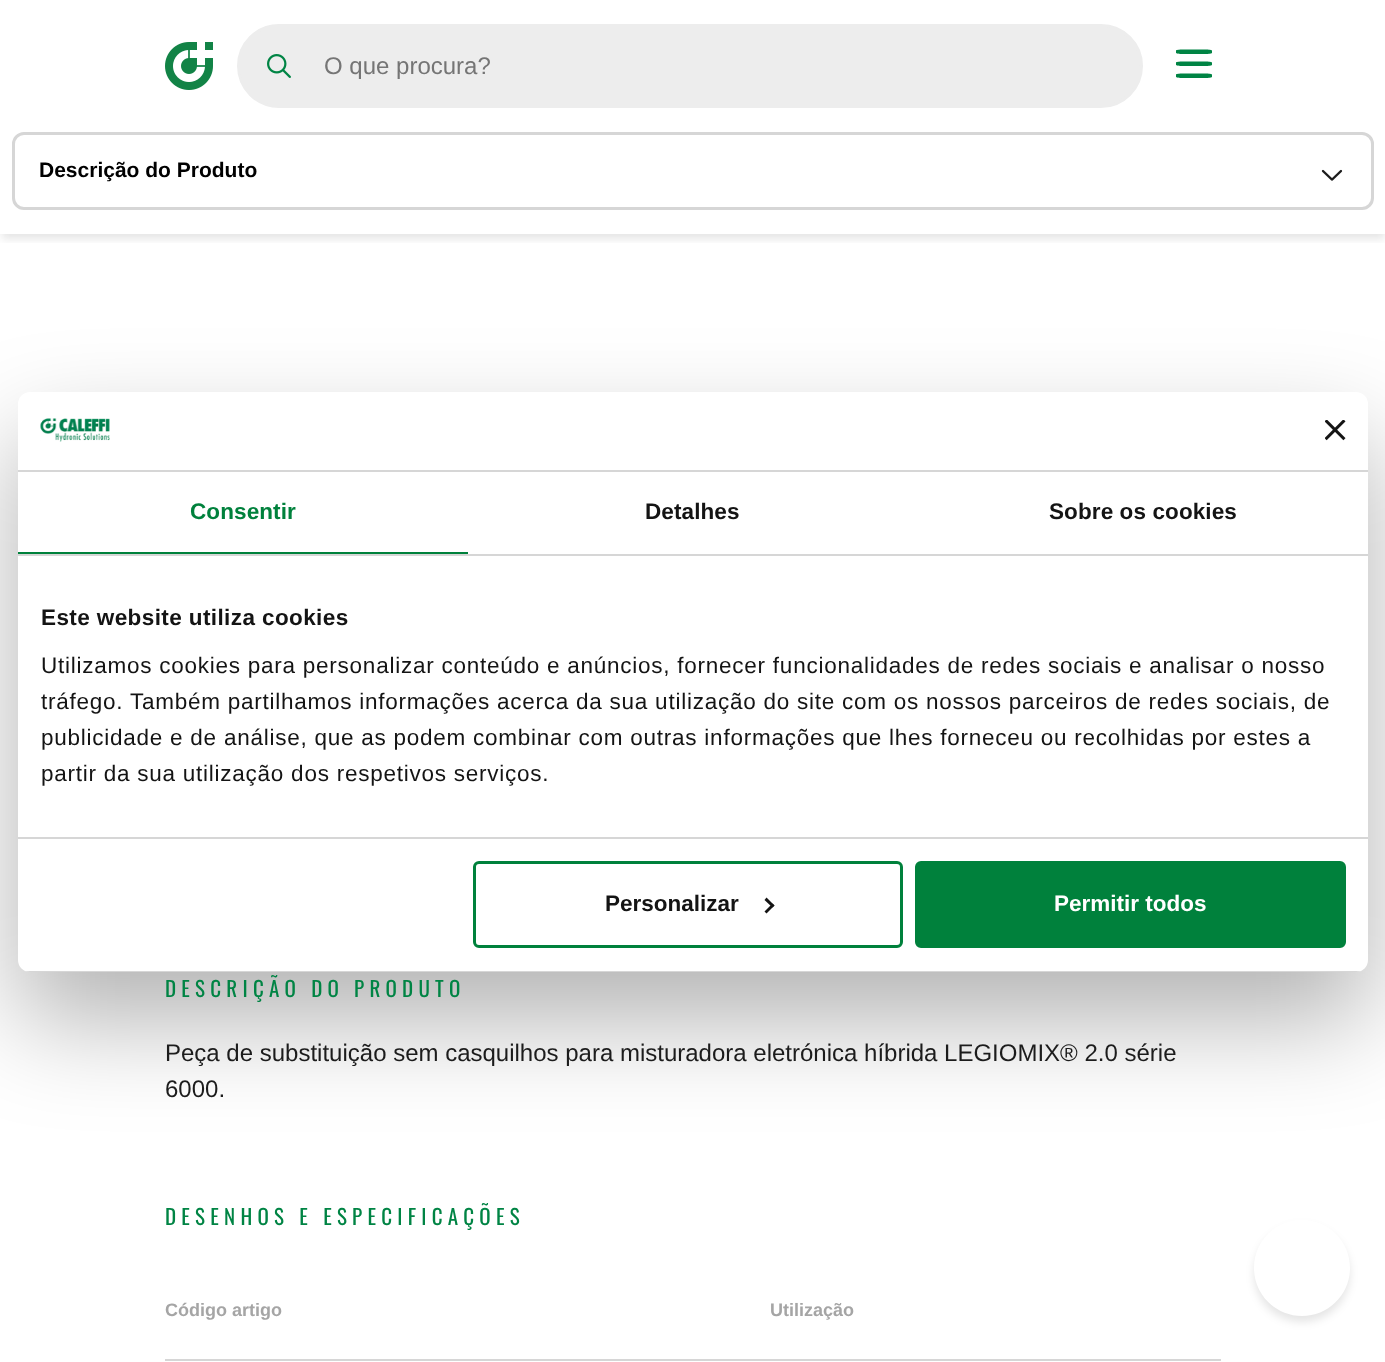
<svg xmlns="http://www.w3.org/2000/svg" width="1385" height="1362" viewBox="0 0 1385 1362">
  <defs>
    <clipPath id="clip1"><path d="M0 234h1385v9H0z"/></clipPath>
    <clipPath id="clip2"><rect x="18" y="392" width="1350" height="580" rx="12"/></clipPath>
    <clipPath id="clip3"><path d="M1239 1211H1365V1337H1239ZM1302 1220C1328.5 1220 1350 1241.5 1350 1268C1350 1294.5 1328.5 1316 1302 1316C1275.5 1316 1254 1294.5 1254 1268C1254 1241.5 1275.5 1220 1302 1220Z" clip-rule="evenodd"/></clipPath>
  </defs>
  <rect width="100%" height="100%" fill="#fff"/>
  <image x="165" y="42" width="48" height="48" href="img/1.png"/>
  <rect x="238.5" y="25.5" width="903" height="81" rx="40.5" fill="#ededed" stroke="#ededed" stroke-width="3"/>
  <image x="267" y="54" width="24" height="24" href="img/2.png"/>
  <path d="M1183 49.5H1205C1209 49.5 1212 50 1212 50.5V53C1212 53.5 1209 54 1205 54H1183C1179 54 1176 53.5 1176 53V50.5C1176 50 1179 49.5 1183 49.5ZM1183 61.5H1205C1209 61.5 1212 62 1212 62.5V65C1212 65.5 1209 66 1205 66H1183C1179 66 1176 65.5 1176 65V62.5C1176 62 1179 61.5 1183 61.5ZM1183 73.5H1205C1209 73.5 1212 74 1212 74.5V77C1212 77.5 1209 78 1205 78H1183C1179 78 1176 77.5 1176 77V74.5C1176 74 1179 73.5 1183 73.5Z" fill="#008444"/>
  <g clip-path="url(#clip1)">
    <path d="M2 140h1383v99H2z" fill="#0000001a" filter="blur(4.5px)"/>
  </g>
  <rect x="13.5" y="133.5" width="1359" height="75" rx="10.5" fill="none" stroke="#d6d6d6" stroke-width="3"/>
  <image x="1321" y="169" width="22" height="12" href="img/3.png"/>
  <path d="M165 1359h1056v2H165z" fill="#d6d6d6"/>
  <rect x="18" y="440" width="1350" height="580" rx="12" fill="#0000004d" filter="blur(51px)"/>
  <rect x="18" y="392" width="1350" height="580" rx="12" fill="#fff"/>
  <path d="M18 470h1350v2H18z" fill="#d6d6d6"/>
  <image x="40" y="418" width="70" height="24" href="img/4.png"/>
  <image x="1325" y="420" width="21" height="21" href="img/5.png"/>
  <path d="M18 554h1350v2H18z" fill="#d6d6d6"/>
  <path d="M18 552h450v2H18z" fill="#00813c"/>
  <path d="M18 837h1350v2H18z" fill="#d6d6d6"/>
  <g clip-path="url(#clip2)">
    <path d="M18 971h1350v1H18z" fill="#d6d6d6"/>
  </g>
  <rect x="474.5" y="862.5" width="427" height="84" rx="4.5" fill="none" stroke="#00813c" stroke-width="3"/>
  <path d="M766.5 897.5L774.5 905.5L772.5 907.5L764.5 900Z" fill="#141414"/>
  <path d="M772.5 903.5L774.5 905.5L766.5 913.5L764.5 911.5Z" fill="#141414"/>
  <rect x="916.5" y="862.5" width="428" height="84" rx="4.5" fill="#00813c" stroke="#00813c" stroke-width="3"/>
  <g clip-path="url(#clip3)">
    <rect x="1254" y="1226" width="96" height="96" rx="48" fill="#0000001a" filter="blur(4.5px)"/>
  </g>
  <text x="324" y="74" font-family="Liberation Sans" font-size="24" fill="#757575">O que procura?</text>
  <text x="39" y="177" font-family="Liberation Sans" font-size="21" font-weight="bold" fill="#000">Descrição do Produto</text>
  <text x="165" y="997" font-family="Oswald" font-size="21" letter-spacing="5.25" fill="#008444">DESCRIÇÃO DO PRODUTO</text>
  <g font-family="Liberation Sans" font-size="24" fill="#1c1c1c">
    <text x="165" y="1061">Peça de substituição sem casquilhos para misturadora eletrónica híbrida LEGIOMIX® 2.0 série</text>
    <text x="165" y="1097">6000.</text>
  </g>
  <text x="165" y="1225" font-family="Oswald" font-size="21" letter-spacing="5.25" fill="#008444">DESENHOS E ESPECIFICAÇÕES</text>
  <g font-family="Liberation Sans" font-size="18" font-weight="bold" fill="#a5a5a5">
    <text x="165" y="1316">Código artigo</text>
    <text x="770" y="1316">Utilização</text>
  </g>
  <text x="190" y="519" font-family="Liberation Sans" font-size="22.5" font-weight="bold" letter-spacing="0.1" fill="#00813c">Consentir</text>
  <g font-family="Liberation Sans" font-size="22.5" font-weight="bold" letter-spacing="0.1" fill="#141414">
    <text x="645" y="519">Detalhes</text>
    <text x="1049" y="519">Sobre os cookies</text>
  </g>
  <text x="41" y="625" font-family="Liberation Sans" font-size="22.5" font-weight="bold" letter-spacing="0.4" fill="#141414">Este website utiliza cookies</text>
  <g font-family="Liberation Sans" font-size="22.5" letter-spacing="0.75" fill="#141414">
    <text x="41" y="673">Utilizamos cookies para personalizar conteúdo e anúncios, fornecer funcionalidades de redes sociais e analisar o nosso</text>
    <text x="41" y="709">tráfego. Também partilhamos informações acerca da sua utilização do site com os nossos parceiros de redes sociais, de</text>
    <text x="41" y="745">publicidade e de análise, que as podem combinar com outras informações que lhes forneceu ou recolhidas por estes a</text>
    <text x="41" y="781">partir da sua utilização dos respetivos serviços.</text>
  </g>
  <text x="605" y="911" font-family="Liberation Sans" font-size="22.5" font-weight="bold" fill="#141414">Personalizar</text>
  <text x="1054" y="911" font-family="Liberation Sans" font-size="22.5" font-weight="bold" fill="#fff">Permitir todos</text>
</svg>
